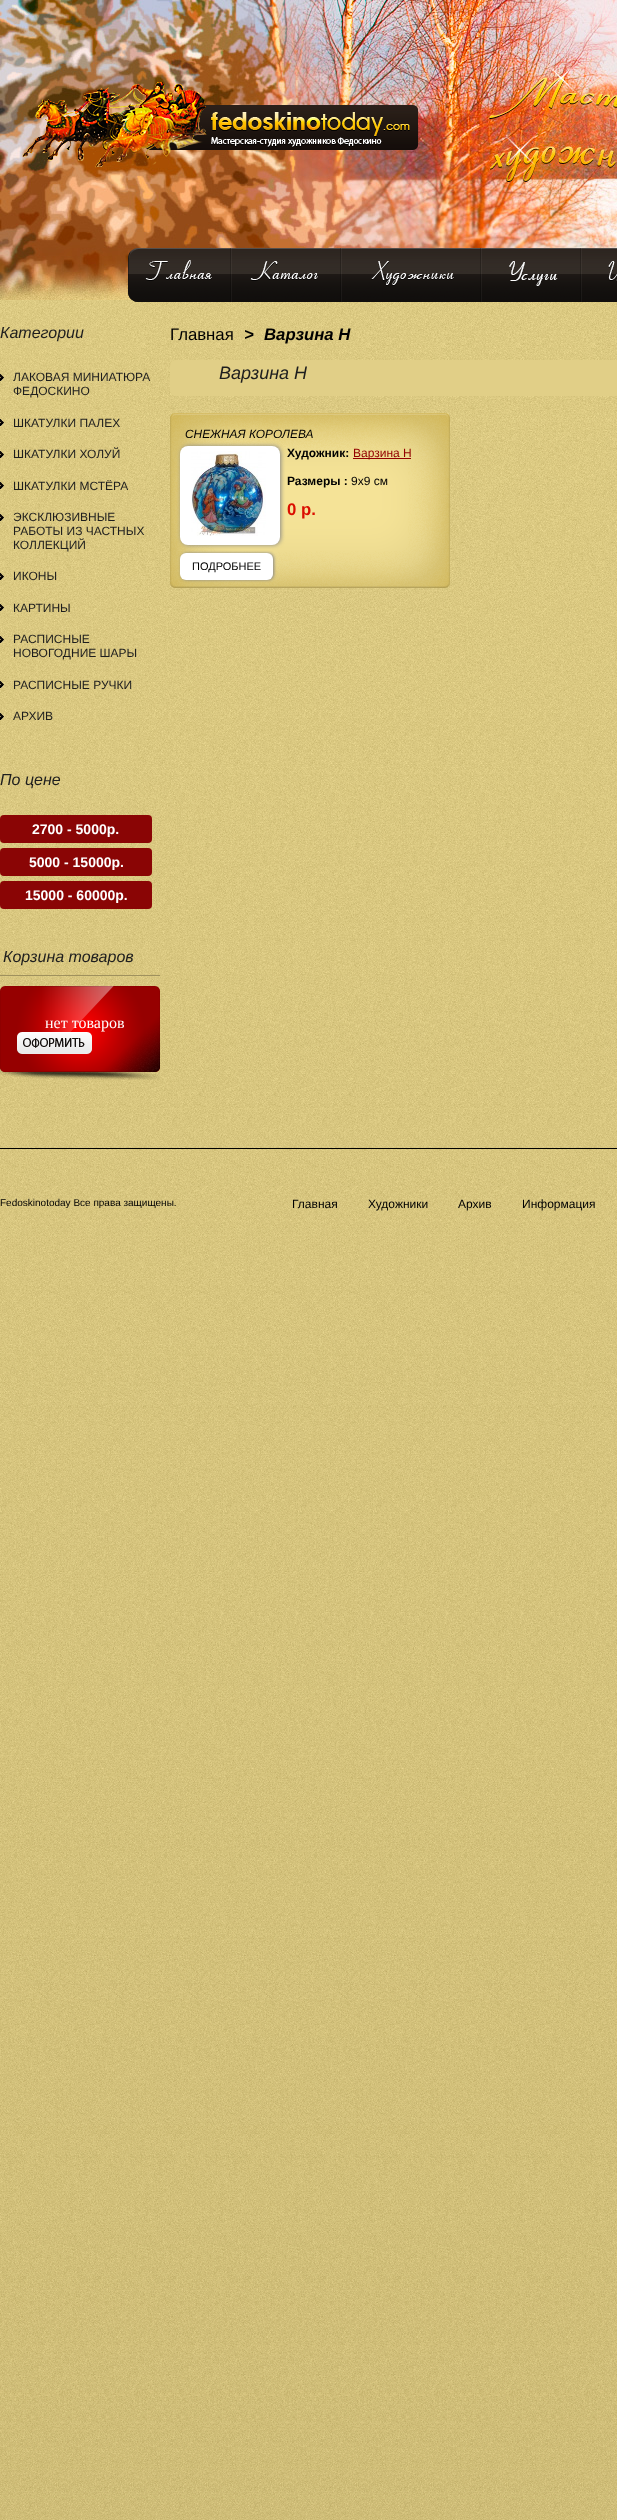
<svg xmlns="http://www.w3.org/2000/svg" width="617" height="2520" viewBox="0 0 617 2520">
  <rect width="100%" height="100%" fill="#fff"/>
  <image x="0" y="300" width="617" height="2220" href="img/1.png"/>
  <image x="0" y="0" width="617" height="300" href="img/2.png"/>
  <image x="20" y="82" width="399" height="86" href="img/3.png"/>
  <image x="128" y="248" width="103" height="54" href="img/4.png"/>
  <image x="231" y="248" width="110" height="54" href="img/5.png"/>
  <image x="341" y="248" width="140" height="54" href="img/6.png"/>
  <image x="481" y="248" width="100" height="54" href="img/7.png"/>
  <image x="581" y="248" width="36" height="54" href="img/8.png"/>
  <image x="0" y="374" width="4" height="7" href="img/9.png"/>
  <image x="0" y="419" width="4" height="7" href="img/10.png"/>
  <image x="0" y="451" width="4" height="7" href="img/11.png"/>
  <image x="0" y="482" width="4" height="7" href="img/12.png"/>
  <image x="0" y="514" width="4" height="7" href="img/13.png"/>
  <image x="0" y="573" width="4" height="7" href="img/14.png"/>
  <image x="0" y="604" width="4" height="7" href="img/15.png"/>
  <image x="0" y="636" width="4" height="7" href="img/16.png"/>
  <image x="0" y="681" width="4" height="7" href="img/17.png"/>
  <image x="0" y="713" width="4" height="7" href="img/18.png"/>
  <rect y="815" width="152" height="28" rx="4" fill="#8a0505"/>
  <rect y="848" width="152" height="28" rx="4" fill="#8a0505"/>
  <rect y="881" width="152" height="28" rx="4" fill="#8a0505"/>
  <path d="M0 975h160v1H0z" fill="#9f915e"/>
  <image x="0" y="986" width="160" height="94" href="img/19.png"/>
  <image x="17" y="1032" width="75" height="22" href="img/20.png"/>
  <rect x="170" y="360" width="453" height="36" rx="6" fill="#e1cf87"/>
  <image x="170" y="413" width="280" height="175" href="img/21.png"/>
  <rect x="181" y="446" width="100" height="99" rx="8" fill="#888" filter="blur(2px)"/>
  <rect x="180" y="446" width="100" height="99" rx="8" fill="#fff"/>
  <image x="191" y="451" width="75" height="85" href="img/22.png"/>
  <path d="M353 458h58v1H353z" fill="#920000"/>
  <rect x="181" y="553" width="93" height="27" rx="6" fill="#888" filter="blur(1.5px)"/>
  <rect x="180" y="553" width="93" height="27" rx="6" fill="#fff"/>
  <path d="M0 1148h617v1H0z" fill="#000"/>
  <text x="0" y="338" font-family="Liberation Sans" font-size="16" font-style="italic" fill="#1e1e1e">Категории</text>
  <g font-family="Liberation Sans" font-size="12" fill="#1e1e1e">
    <text x="13" y="381">ЛАКОВАЯ МИНИАТЮРА</text>
    <text x="13" y="395">ФЕДОСКИНО</text>
    <text x="13" y="427">ШКАТУЛКИ ПАЛЕХ</text>
    <text x="13" y="458">ШКАТУЛКИ ХОЛУЙ</text>
    <text x="13" y="490">ШКАТУЛКИ МСТЁРА</text>
    <text x="13" y="521">ЭКСКЛЮЗИВНЫЕ</text>
    <text x="13" y="535">РАБОТЫ ИЗ ЧАСТНЫХ</text>
    <text x="13" y="549">КОЛЛЕКЦИЙ</text>
    <text x="13" y="580">ИКОНЫ</text>
    <text x="13" y="612">КАРТИНЫ</text>
    <text x="13" y="643">РАСПИСНЫЕ</text>
    <text x="13" y="657">НОВОГОДНИЕ ШАРЫ</text>
    <text x="13" y="689">РАСПИСНЫЕ РУЧКИ</text>
    <text x="13" y="720">АРХИВ</text>
  </g>
  <text x="0" y="785" font-family="Liberation Sans" font-size="16" font-style="italic" fill="#1e1e1e">По цене</text>
  <g font-family="Liberation Sans" font-size="14" font-weight="bold" fill="#fff">
    <text x="32" y="834">2700 - 5000р.</text>
    <text x="29" y="867">5000 - 15000р.</text>
    <text x="25" y="900">15000 - 60000р.</text>
  </g>
  <text x="3" y="962" font-family="Liberation Sans" font-size="16" font-style="italic" fill="#1e1e1e">Корзина товаров</text>
  <text x="45" y="1028" font-family="Liberation Serif" font-size="16" fill="#fff">нет товаров</text>
  <text x="170" y="340" font-family="Liberation Sans" font-size="16.75" fill="#000">Главная</text>
  <g font-family="Liberation Sans" font-size="16.75" font-weight="bold" font-style="italic" fill="#000">
    <text x="244" y="340">&gt;</text>
    <text x="264" y="340">Варзина Н</text>
  </g>
  <text x="219" y="379" font-family="Liberation Sans" font-size="18" font-style="italic" fill="#1e1e1e">Варзина Н</text>
  <text x="185" y="438" font-family="Liberation Sans" font-size="11.9" font-style="italic" fill="#000">СНЕЖНАЯ КОРОЛЕВА</text>
  <text x="287" y="457" font-family="Liberation Sans" font-size="12" font-weight="bold" fill="#000">Художник:</text>
  <text x="353" y="457" font-family="Liberation Sans" font-size="12" fill="#920000">Варзина Н</text>
  <text x="287" y="485" font-family="Liberation Sans" font-size="12" font-weight="bold" fill="#000">Размеры :</text>
  <text x="351" y="485" font-family="Liberation Sans" font-size="12" fill="#000">9х9 см</text>
  <text x="287" y="515" font-family="Liberation Sans" font-size="16.75" font-weight="bold" fill="#da0f00">0 р.</text>
  <text x="192" y="570" font-family="Liberation Sans" font-size="11" fill="#000">ПОДРОБНЕЕ</text>
  <text x="0" y="1206" font-family="Liberation Sans" font-size="10" fill="#000">Fedoskinotoday Все права защищены.</text>
  <g font-family="Liberation Sans" font-size="12" fill="#000">
    <text x="292" y="1208">Главная</text>
    <text x="368" y="1208">Художники</text>
    <text x="458" y="1208">Архив</text>
    <text x="522" y="1208">Информация</text>
  </g>
</svg>
